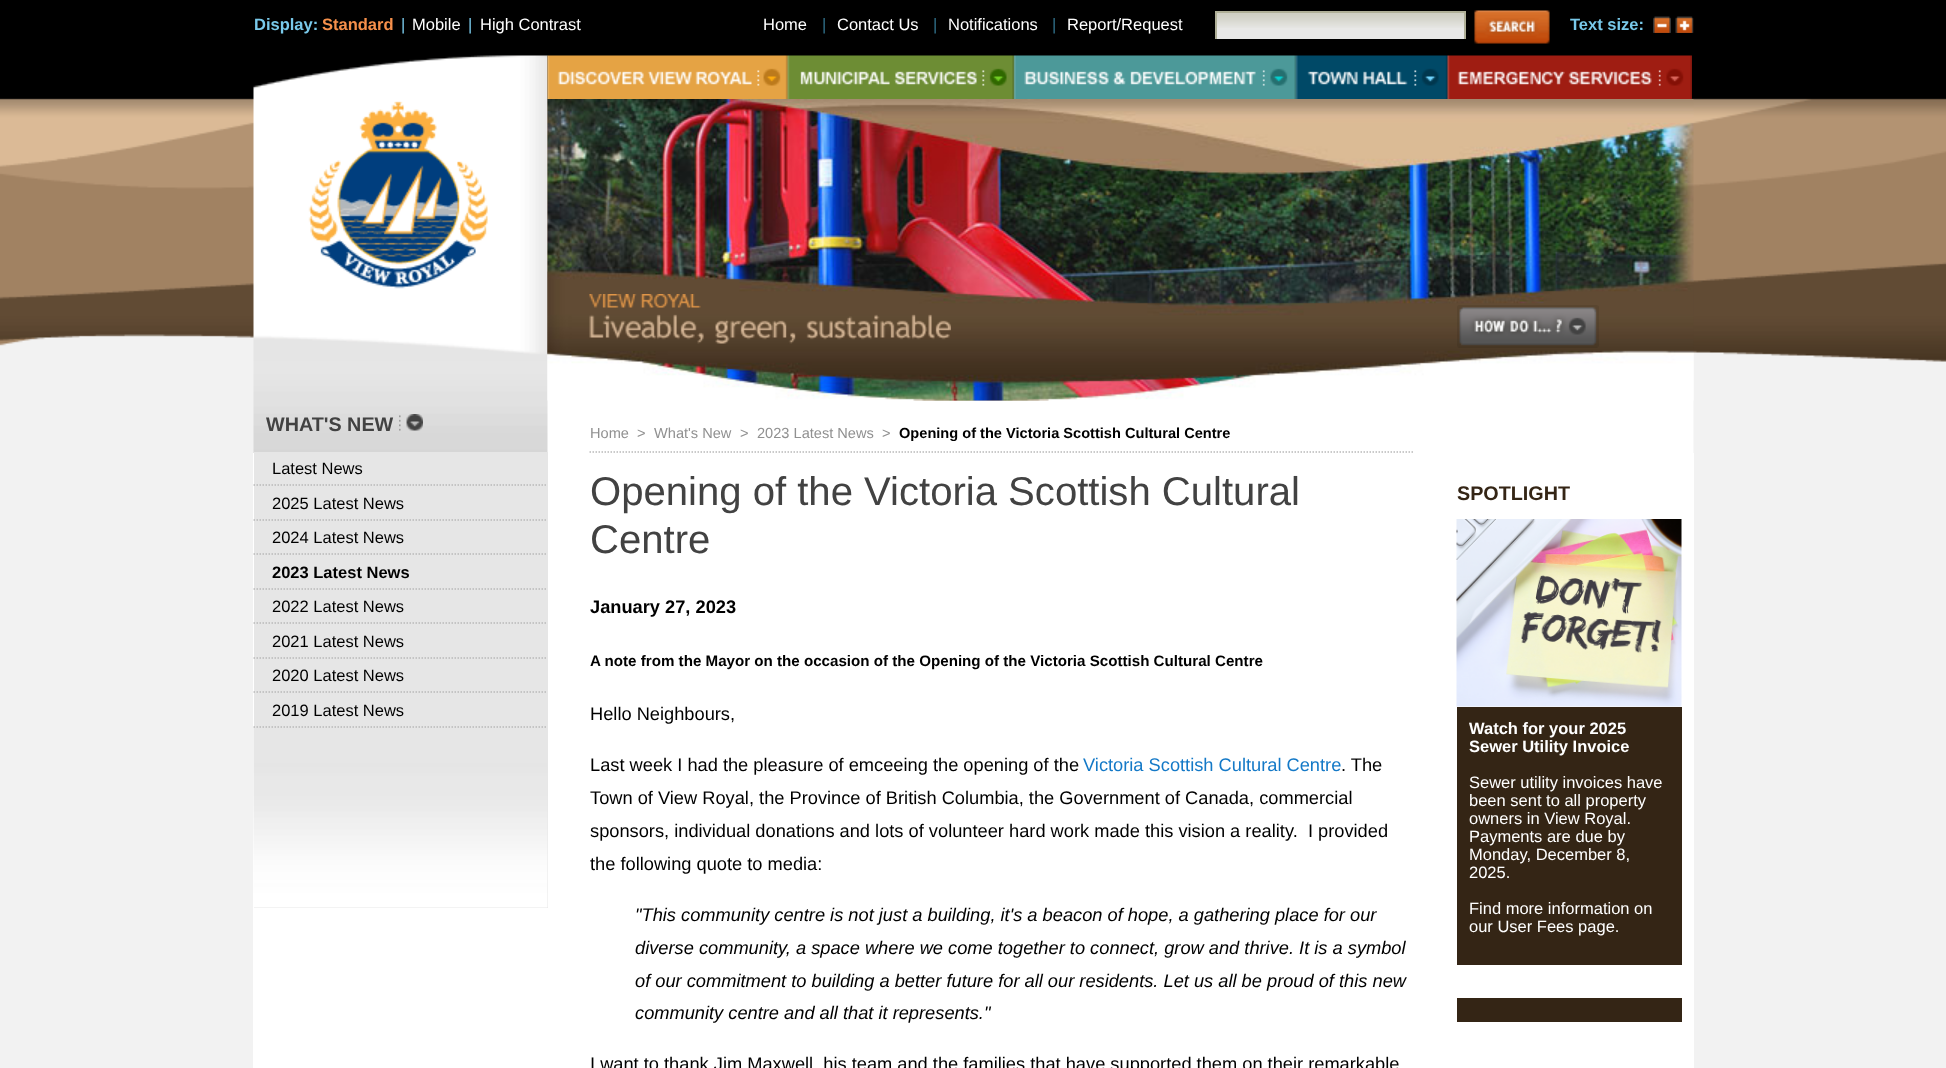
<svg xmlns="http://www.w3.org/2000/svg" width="1946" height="1068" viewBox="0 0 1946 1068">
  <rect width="100%" height="100%" fill="#f2f2f2"/>
  <path d="M253 453h1441v615H253z" fill="#fff"/>
  <image x="0" y="0" width="1946" height="453" href="img/1.png"/>
  <path d="M1217 28h247v11H1217z" fill="#e8e8e7"/>
  <image x="1217" y="13" width="247" height="15" href="img/2.png"/>
  <path d="M1215 11h251v2H1215z" fill="#afaf97"/>
  <path d="M1464 11h2v28H1464z" fill="#afaf97"/>
  <path d="M1215 11h2v28H1215z" fill="#afaf97"/>
  <image x="1474" y="10" width="76" height="34" href="img/3.png"/>
  <image x="547" y="99" width="1147" height="302" href="img/4.png"/>
  <image x="1653" y="16" width="18" height="17" href="img/5.png"/>
  <image x="1675" y="16" width="19" height="17" href="img/6.png"/>
  <image x="589" y="294" width="362" height="50" href="img/7.png"/>
  <image x="547" y="55" width="1145" height="44" href="img/8.png"/>
  <image x="1457" y="305" width="142" height="43" href="img/9.png"/>
  <image x="399" y="414" width="24" height="17" href="img/10.png"/>
  <path d="M254 452h294v456H254z" fill="#e6e6e6"/>
  <image x="253" y="727" width="295" height="181" href="img/11.png"/>
  <path d="M253.5 485H547.5" fill="none" stroke="#b9b9b9" stroke-width="1.5" stroke-dasharray="1.5 1.5"/>
  <path d="M253.5 520H547.5" fill="none" stroke="#b9b9b9" stroke-width="1.5" stroke-dasharray="1.5 1.5"/>
  <path d="M253.5 554H547.5" fill="none" stroke="#b9b9b9" stroke-width="1.5" stroke-dasharray="1.5 1.5"/>
  <path d="M253.5 589H547.5" fill="none" stroke="#b9b9b9" stroke-width="1.5" stroke-dasharray="1.5 1.5"/>
  <path d="M253.5 623H547.5" fill="none" stroke="#b9b9b9" stroke-width="1.5" stroke-dasharray="1.5 1.5"/>
  <path d="M253.5 658H547.5" fill="none" stroke="#b9b9b9" stroke-width="1.5" stroke-dasharray="1.5 1.5"/>
  <path d="M253.5 692H547.5" fill="none" stroke="#b9b9b9" stroke-width="1.5" stroke-dasharray="1.5 1.5"/>
  <path d="M253.5 727H547.5" fill="none" stroke="#b9b9b9" stroke-width="1.5" stroke-dasharray="1.5 1.5"/>
  <path d="M589.5 452H1414.5" fill="none" stroke="#b9b9b9" stroke-width="1.5" stroke-dasharray="1.5 1.5"/>
  <image x="1456" y="519" width="226" height="188" href="img/12.png"/>
  <path d="M1457 707h225v258H1457z" fill="#342515"/>
  <path d="M1457 998h225v24H1457z" fill="#342515"/>
  <text x="254" y="30" font-family="Liberation Sans" font-size="16.5" font-weight="bold" fill="#79c9ea">Display:</text>
  <text x="322" y="30" font-family="Liberation Sans" font-size="16.5" font-weight="bold" fill="#f6904b">Standard</text>
  <text x="401" y="30" font-family="Liberation Sans" font-size="16.5" fill="#79c9ea">|</text>
  <text x="412" y="30" font-family="Liberation Sans" font-size="16.5" fill="#fff">Mobile</text>
  <text x="468" y="30" font-family="Liberation Sans" font-size="16.5" fill="#79c9ea">|</text>
  <text x="480" y="30" font-family="Liberation Sans" font-size="16.5" fill="#fff">High Contrast</text>
  <text x="1570" y="30" font-family="Liberation Sans" font-size="16.5" font-weight="bold" fill="#79c9ea">Text size:</text>
  <text x="763" y="30" font-family="Liberation Sans" font-size="16.5" fill="#fff">Home</text>
  <text x="822" y="30" font-family="Liberation Sans" font-size="16.5" fill="#30708a">|</text>
  <text x="837" y="30" font-family="Liberation Sans" font-size="16.5" fill="#fff">Contact Us</text>
  <text x="933" y="30" font-family="Liberation Sans" font-size="16.5" fill="#30708a">|</text>
  <text x="948" y="30" font-family="Liberation Sans" font-size="16.5" fill="#fff">Notifications</text>
  <text x="1052" y="30" font-family="Liberation Sans" font-size="16.5" fill="#30708a">|</text>
  <text x="1067" y="30" font-family="Liberation Sans" font-size="16.5" fill="#fff">Report/Request</text>
  <text x="266" y="431" font-family="Liberation Sans" font-size="19.75" font-weight="bold" fill="#424242">WHAT'S NEW</text>
  <g font-family="Liberation Sans" font-size="16.5" fill="#000">
    <text x="272" y="474">Latest News</text>
    <text x="272" y="509">2025 Latest News</text>
    <text x="272" y="543">2024 Latest News</text>
  </g>
  <text x="272" y="578" font-family="Liberation Sans" font-size="16.5" font-weight="bold" fill="#000">2023 Latest News</text>
  <g font-family="Liberation Sans" font-size="16.5" fill="#000">
    <text x="272" y="612">2022 Latest News</text>
    <text x="272" y="647">2021 Latest News</text>
    <text x="272" y="681">2020 Latest News</text>
    <text x="272" y="716">2019 Latest News</text>
  </g>
  <g font-family="Liberation Sans" font-size="14.6" fill="#909090">
    <text x="590" y="438">Home</text>
    <text x="637" y="438">&gt;</text>
    <text x="654" y="438">What's New</text>
    <text x="740" y="438">&gt;</text>
    <text x="757" y="438">2023 Latest News</text>
    <text x="882" y="438">&gt;</text>
  </g>
  <text x="899" y="438" font-family="Liberation Sans" font-size="14.6" font-weight="bold" fill="#000">Opening of the Victoria Scottish Cultural Centre</text>
  <g font-family="Liberation Sans" font-size="40.1" fill="#424242">
    <text x="590" y="505">Opening of the Victoria Scottish Cultural</text>
    <text x="590" y="553">Centre</text>
  </g>
  <text x="590" y="613" font-family="Liberation Sans" font-size="18.25" font-weight="bold" fill="#000">January 27, 2023</text>
  <text x="590" y="666" font-family="Liberation Sans" font-size="15.15" font-weight="bold" fill="#000">A note from the Mayor on the occasion of the Opening of the Victoria Scottish Cultural Centre</text>
  <g font-family="Liberation Sans" font-size="18.25" fill="#000">
    <text x="590" y="720">Hello Neighbours,</text>
    <text x="590" y="771">Last week I had the pleasure of emceeing the opening of the</text>
  </g>
  <text x="1083" y="771" font-family="Liberation Sans" font-size="18.25" fill="#1479c7">Victoria Scottish Cultural Centre</text>
  <g font-family="Liberation Sans" font-size="18.25" fill="#000">
    <text x="1341" y="771">. The</text>
    <text x="590" y="804">Town of View Royal, the Province of British Columbia, the Government of Canada, commercial</text>
    <text x="590" y="837" xml:space="preserve">sponsors, individual donations and lots of volunteer hard work made this vision a reality.  I provided</text>
    <text x="590" y="870">the following quote to media:</text>
  </g>
  <g font-family="Liberation Sans" font-size="18.25" font-style="italic" fill="#000">
    <text x="635" y="921">"This community centre is not just a building, it's a beacon of hope, a gathering place for our</text>
    <text x="635" y="954">diverse community, a space where we come together to connect, grow and thrive. It is a symbol</text>
    <text x="635" y="987">of our commitment to building a better future for all our residents. Let us all be proud of this new</text>
    <text x="635" y="1019">community centre and all that it represents."</text>
  </g>
  <text x="590" y="1070" font-family="Liberation Sans" font-size="18.25" fill="#000">I want to thank Jim Maxwell, his team and the families that have supported them on their remarkable</text>
  <text x="1457" y="500" font-family="Liberation Sans" font-size="19.75" font-weight="bold" fill="#342515">SPOTLIGHT</text>
  <g font-family="Liberation Sans" font-size="16.5" font-weight="bold" fill="#fff">
    <text x="1469" y="734">Watch for your 2025</text>
    <text x="1469" y="752">Sewer Utility Invoice</text>
  </g>
  <g font-family="Liberation Sans" font-size="16.5" fill="#fff">
    <text x="1469" y="788">Sewer utility invoices have</text>
    <text x="1469" y="806">been sent to all property</text>
    <text x="1469" y="824">owners in View Royal.</text>
    <text x="1469" y="842">Payments are due by</text>
    <text x="1469" y="860">Monday, December 8,</text>
    <text x="1469" y="878">2025.</text>
    <text x="1469" y="914">Find more information on</text>
    <text x="1469" y="932">our User Fees page.</text>
  </g>
</svg>
